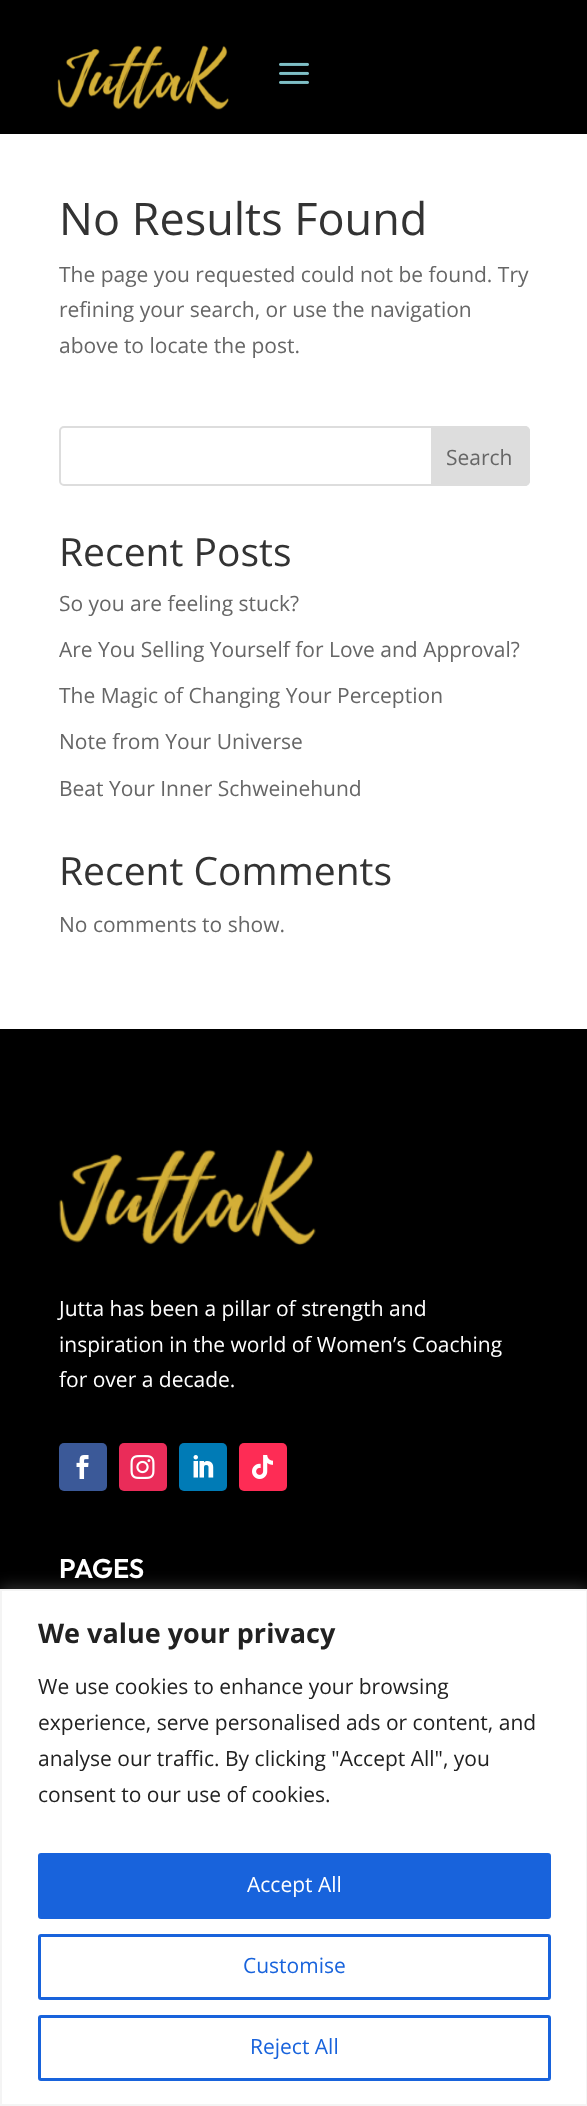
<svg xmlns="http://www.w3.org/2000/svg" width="587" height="2106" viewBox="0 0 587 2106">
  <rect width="100%" height="100%" fill="#fff"/>
  <path d="M0 0h587v134H0z" fill="#000"/>
  <image x="57" y="45" width="172" height="65" href="img/1.png"/>
  <image x="279" y="62" width="30" height="22" href="img/2.png"/>
  <rect x="60" y="427" width="469" height="58" rx="4" fill="none" stroke="#ddd" stroke-width="2"/>
  <path d="M432 427H525C527 427 529 429 529 431V481C529 483 527 485 525 485H432Z" fill="#ddd" stroke="#ddd" stroke-width="2"/>
  <path d="M0 1029h587v560H0z" fill="#000"/>
  <image x="58" y="1149" width="258" height="96" href="img/3.png"/>
  <rect x="59" y="1443" width="48" height="48" rx="5" fill="#3b5998"/>
  <image x="76" y="1455" width="13" height="24" href="img/4.png"/>
  <rect x="119" y="1443" width="48" height="48" rx="5" fill="#ea2c59"/>
  <image x="130" y="1455" width="25" height="24" href="img/5.png"/>
  <rect x="179" y="1443" width="48" height="48" rx="5" fill="#007bb6"/>
  <image x="193" y="1455" width="21" height="23" href="img/6.png"/>
  <rect x="239" y="1443" width="48" height="48" rx="5" fill="#fe2c55"/>
  <image x="252" y="1455" width="21" height="24" href="img/7.png"/>
  <path d="M0 1587h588v518H0z" fill="#acabab4d" filter="blur(7.5px)"/>
  <path d="M1 1590h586v515H1z" fill="#fff" stroke="#f4f4f4" stroke-width="2"/>
  <rect x="39.5" y="1854.5" width="510" height="63" rx="1.5" fill="#1863dc" stroke="#1863dc" stroke-width="3"/>
  <rect x="39.5" y="1935.5" width="510" height="63" rx="1.5" fill="none" stroke="#1863dc" stroke-width="3"/>
  <rect x="39.5" y="2016.5" width="510" height="63" rx="1.5" fill="none" stroke="#1863dc" stroke-width="3"/>
  <text x="59" y="235" font-family="Open Sans" font-size="45" fill="#333">No Results Found</text>
  <g font-family="Open Sans" font-size="21" fill="#666">
    <text x="59" y="282">The page you requested could not be found. Try</text>
    <text x="59" y="317">refining your search, or use the navigation</text>
    <text x="59" y="353">above to locate the post.</text>
    <text x="446" y="465">Search</text>
  </g>
  <text x="59" y="566" font-family="Open Sans" font-size="39" fill="#333">Recent Posts</text>
  <g font-family="Open Sans" font-size="21" fill="#666">
    <text x="59" y="611">So you are feeling stuck?</text>
    <text x="59" y="657">Are You Selling Yourself for Love and Approval?</text>
    <text x="59" y="703">The Magic of Changing Your Perception</text>
    <text x="59" y="749">Note from Your Universe</text>
    <text x="59" y="796">Beat Your Inner Schweinehund</text>
  </g>
  <text x="59" y="885" font-family="Open Sans" font-size="39" fill="#333">Recent Comments</text>
  <text x="59" y="932" font-family="Open Sans" font-size="21" fill="#666">No comments to show.</text>
  <g font-family="Open Sans" font-size="21" fill="#fff">
    <text x="59" y="1316">Jutta has been a pillar of strength and</text>
    <text x="59" y="1352">inspiration in the world of Women’s Coaching</text>
    <text x="59" y="1387">for over a decade.</text>
  </g>
  <text x="59" y="1578" font-family="Outfit" font-size="27" font-weight="600" fill="#fff">PAGES</text>
  <text x="38" y="1643" font-family="Open Sans" font-size="27" font-weight="bold" fill="#212121">We value your privacy</text>
  <g font-family="Open Sans" font-size="21" fill="#212121">
    <text x="38" y="1694">We use cookies to enhance your browsing</text>
    <text x="38" y="1730">experience, serve personalised ads or content, and</text>
    <text x="38" y="1766">analyse our traffic. By clicking "Accept All", you</text>
    <text x="38" y="1802">consent to our use of cookies.</text>
  </g>
  <text x="247" y="1892" font-family="Open Sans" font-size="21" fill="#fff">Accept All</text>
  <g font-family="Open Sans" font-size="21" fill="#1863dc">
    <text x="243" y="1973">Customise</text>
    <text x="250" y="2054">Reject All</text>
  </g>
</svg>
